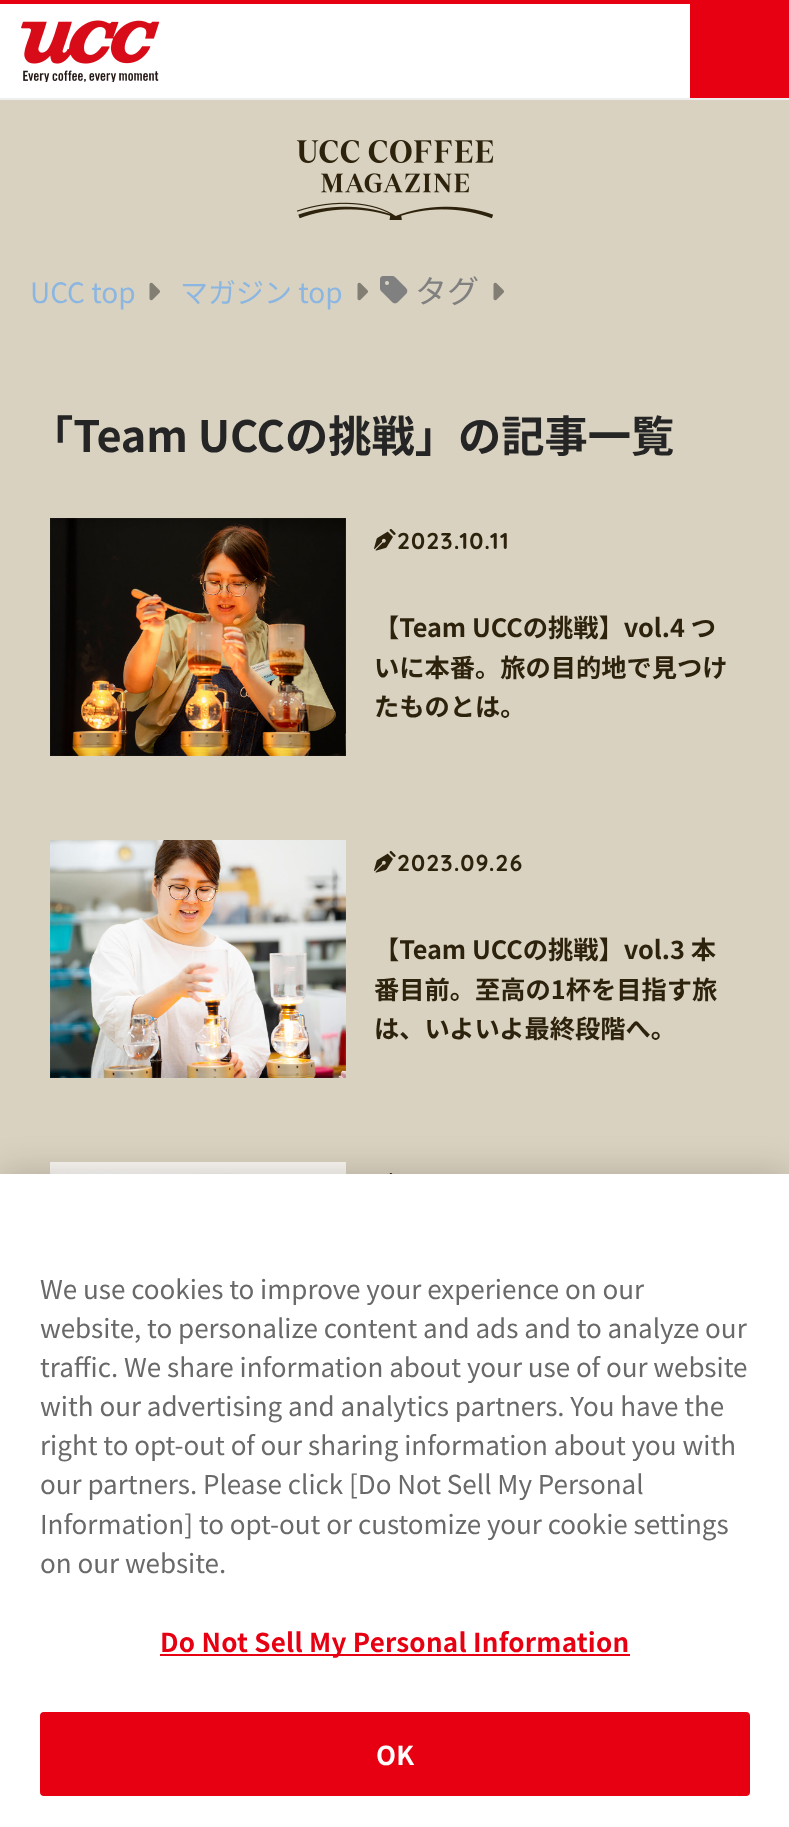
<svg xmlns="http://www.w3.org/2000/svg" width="789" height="1827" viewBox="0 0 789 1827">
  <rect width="100%" height="100%" fill="#dad2c0"/>
  <path d="M0 4h690v94H0z" fill="#fff"/>
  <path d="M0 0h789v4H0z" fill="#e60012"/>
  <path d="M0 98h789v2H0z" fill="#eee"/>
  <image x="21" y="20" width="139" height="62" href="img/1.png"/>
  <path d="M690 4h99v94H690z" fill="#e60012"/>
  <image x="296" y="140" width="198" height="80" href="img/2.png"/>
  <image x="149" y="282" width="11" height="19" href="img/3.png"/>
  <image x="357" y="282" width="11" height="19" href="img/3.png"/>
  <image x="380" y="276" width="28" height="28" href="img/4.png"/>
  <image x="493" y="282" width="11" height="19" href="img/3.png"/>
  <image x="50" y="518" width="296" height="238" href="img/5.png"/>
  <image x="374" y="529" width="22" height="22" href="img/6.png"/>
  <image x="50" y="840" width="296" height="238" href="img/7.png"/>
  <image x="374" y="851" width="22" height="22" href="img/6.png"/>
  <image x="50" y="1162" width="296" height="12" href="img/8.png"/>
  <image x="389" y="1173" width="4" height="1" href="img/9.png"/>
  <path d="M0 1174h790v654H0z" fill="#00000033" filter="blur(18px)"/>
  <path d="M0 1174h789v653H0z" fill="#fff"/>
  <path d="M160 1654h470v2H160z" fill="#e60012"/>
  <rect x="41" y="1713" width="708" height="82" rx="3" fill="#e60012" stroke="#e60012" stroke-width="2"/>
  <g font-family="Noto Sans JP" font-size="28" fill="#8bb6e1">
    <text x="30" y="303">UCC top</text>
    <text x="180" y="303">マガジン top</text>
  </g>
  <text x="415" y="303" font-family="Noto Sans JP" font-size="32" fill="#808080">タグ</text>
  <text x="30" y="452" font-family="Noto Sans JP" font-size="43.25" font-weight="bold" fill="#252525">「Team UCCの挑戦」の記事一覧</text>
  <text x="397" y="549" font-family="Quicksand" font-size="23" font-weight="bold" letter-spacing="1" fill="#2d220c">2023.10.11</text>
  <g font-family="Noto Sans JP" font-size="25.25" font-weight="bold" fill="#2d220c">
    <text x="374" y="637">【Team UCCの挑戦】vol.4 つ</text>
    <text x="374" y="677">いに本番。旅の目的地で見つけ</text>
    <text x="374" y="716">たものとは。</text>
  </g>
  <text x="397" y="871" font-family="Quicksand" font-size="23" font-weight="bold" letter-spacing="1" fill="#2d220c">2023.09.26</text>
  <g font-family="Noto Sans JP" font-size="25.25" font-weight="bold" fill="#2d220c">
    <text x="374" y="959">【Team UCCの挑戦】vol.3 本</text>
    <text x="374" y="999">番目前。至高の1杯を目指す旅</text>
    <text x="374" y="1038">は、いよいよ最終段階へ。</text>
  </g>
  <g font-family="Noto Sans JP" font-size="26" fill="#696969">
    <text x="40" y="1299">We use cookies to improve your experience on our</text>
    <text x="40" y="1338">website, to personalize content and ads and to analyze our</text>
    <text x="40" y="1377">traffic. We share information about your use of our website</text>
    <text x="40" y="1416">with our advertising and analytics partners. You have the</text>
    <text x="40" y="1455">right to opt-out of our sharing information about you with</text>
    <text x="40" y="1494">our partners. Please click [Do Not Sell My Personal</text>
    <text x="40" y="1534">Information] to opt-out or customize your cookie settings</text>
    <text x="40" y="1573">on our website.</text>
  </g>
  <text x="160" y="1652" font-family="Noto Sans JP" font-size="26" font-weight="bold" letter-spacing="0.25" fill="#e60012">Do Not Sell My Personal Information</text>
  <text x="376" y="1765" font-family="Noto Sans JP" font-size="26" font-weight="bold" letter-spacing="0.25" fill="#fff">OK</text>
</svg>
